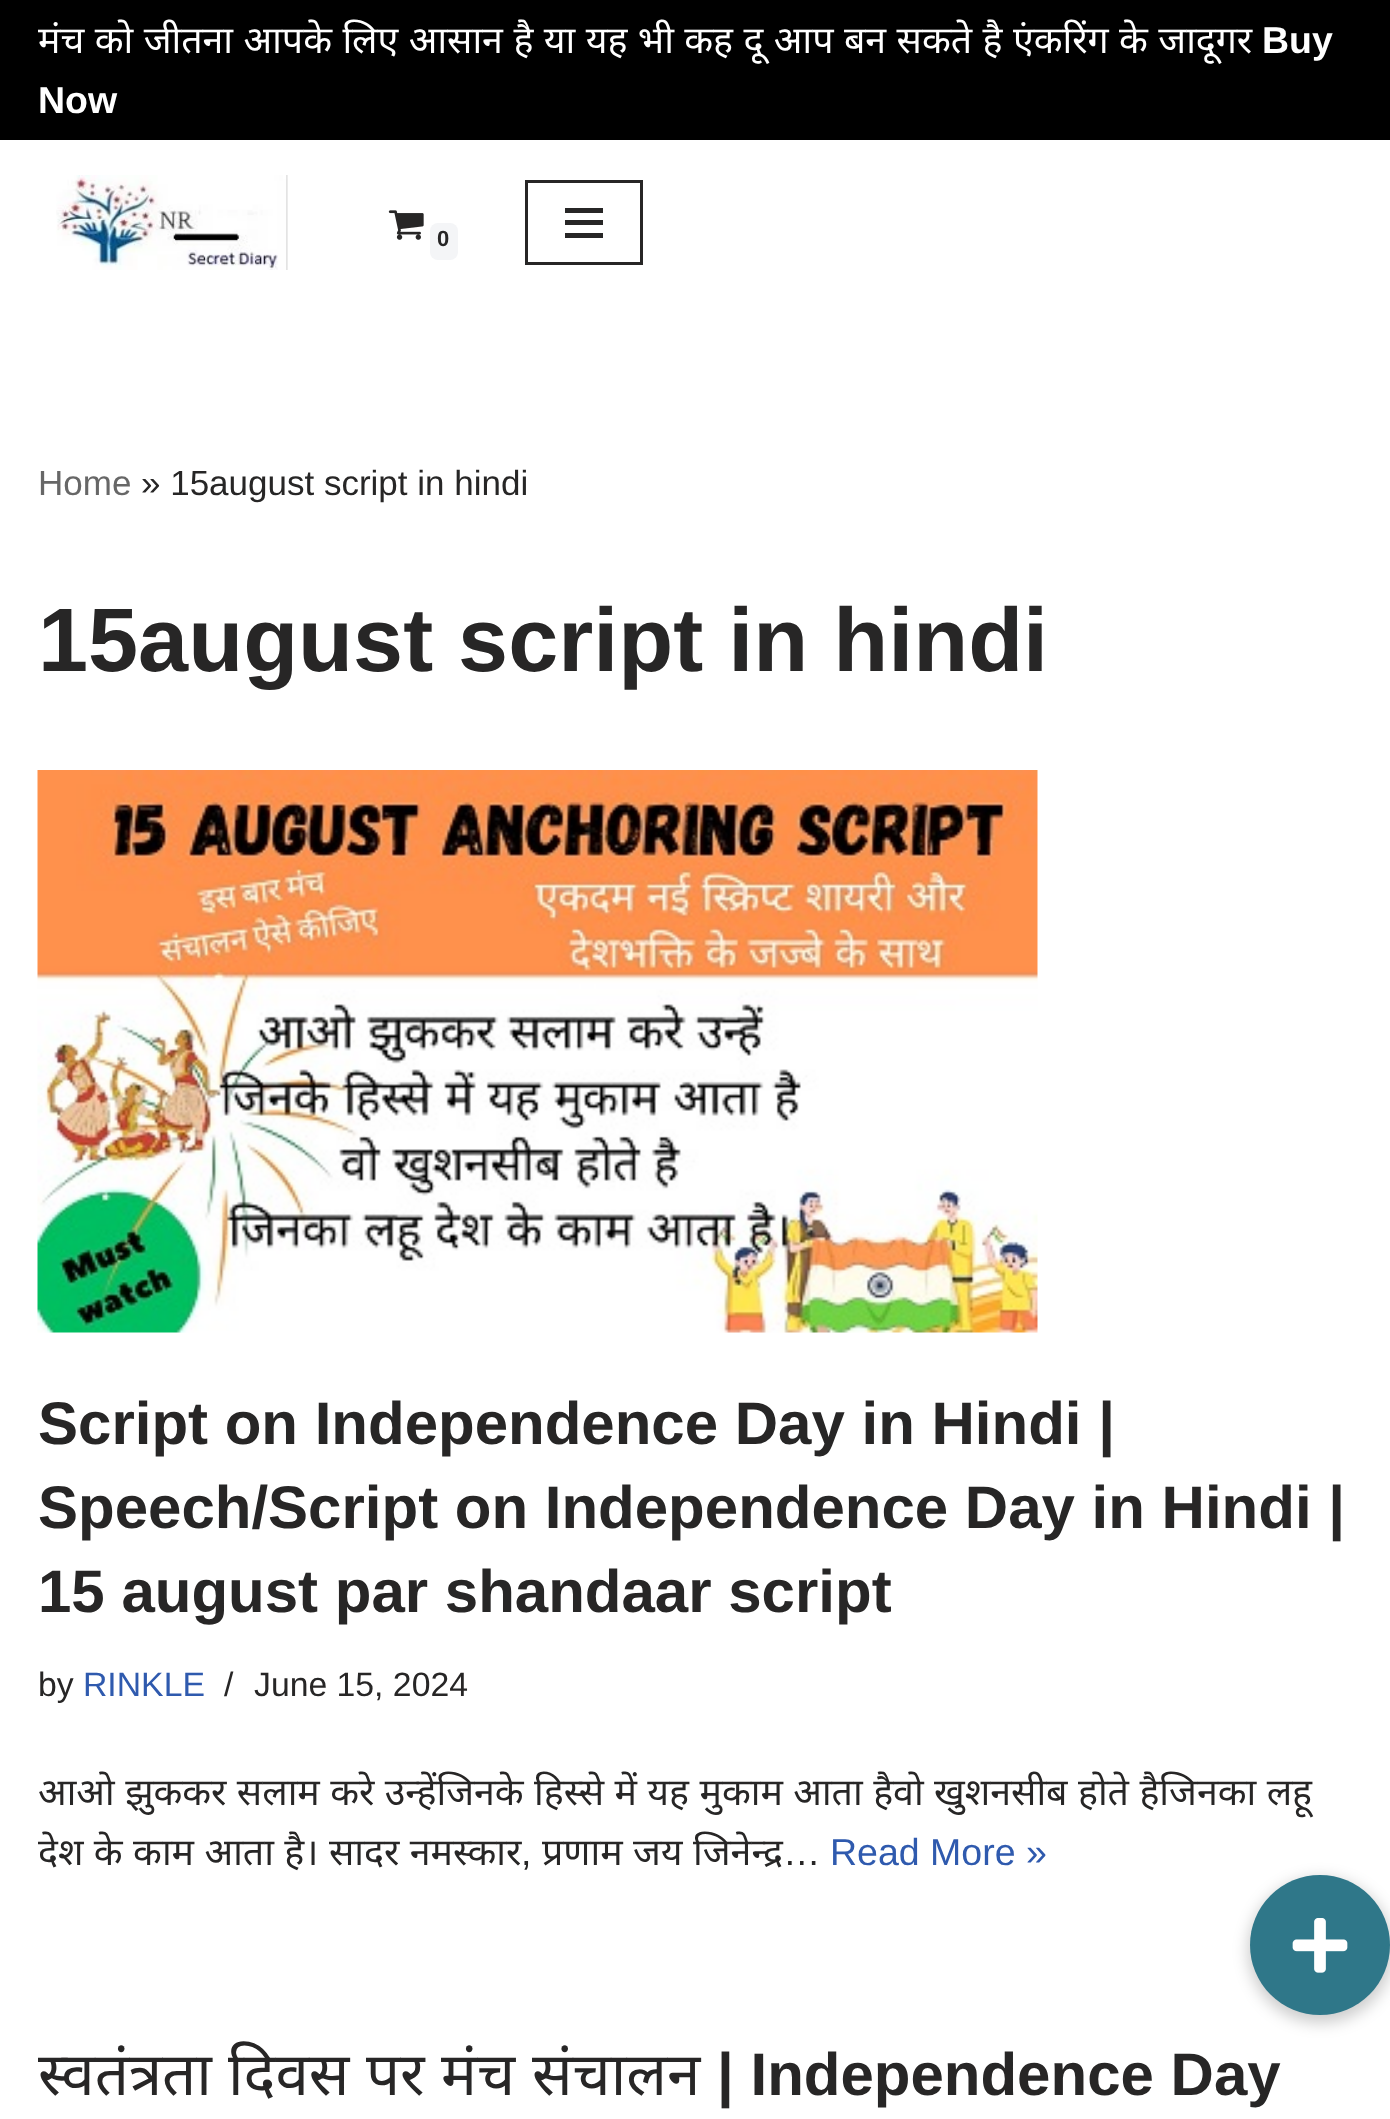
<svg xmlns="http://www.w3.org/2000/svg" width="1390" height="2119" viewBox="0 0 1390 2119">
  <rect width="100%" height="100%" fill="#fff"/>
  <path d="M0 0h1390v140H0z" fill="#000"/>
  <image x="56" y="175" width="232" height="95" href="img/1.png"/>
  <image x="388" y="210" width="36" height="30" href="img/2.png"/>
  <rect x="430" y="223" width="28" height="37" rx="8" fill="#f4f5f7"/>
  <path d="M526.5 181.5h115v82H526.5z" fill="none" stroke="#272626" stroke-width="3"/>
  <path d="M565 208h38v5H565z" fill="#272626"/>
  <path d="M565 220h38v5H565z" fill="#272626"/>
  <path d="M565 233h38v5H565z" fill="#272626"/>
  <image x="37" y="770" width="1001" height="563" href="img/3.png"/>
  <rect x="1248" y="1878" width="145" height="145" rx="72.5" fill="#00000033" filter="blur(7.5px)"/>
  <circle cx="1320" cy="1945" r="70" fill="#2f7789"/>
  <image x="1292" y="1918" width="56" height="55" href="img/4.png"/>
  <text x="38" y="53" word-spacing="0.7" font-family="Noto Sans" font-size="37.5" fill="#fff">मंच को जीतना आपके लिए आसान है या यह भी कह दू आप बन सकते है एंकरिंग के जादूगर</text>
  <g font-family="Liberation Sans" font-size="37.5" font-weight="bold" fill="#fff">
    <text x="1262" y="53">Buy</text>
    <text x="38" y="113">Now</text>
  </g>
  <text x="437" y="246" font-family="Liberation Sans" font-size="22" font-weight="bold" fill="#272626">0</text>
  <text x="38" y="495" font-family="Liberation Sans" font-size="35" fill="#676767">Home</text>
  <text x="141" y="495" font-family="Liberation Sans" font-size="35" fill="#272626">» 15august script in hindi</text>
  <text x="38" y="671" font-family="Liberation Sans" font-size="90" font-weight="bold" fill="#272626">15august script in hindi</text>
  <g font-family="Liberation Sans" font-size="60" font-weight="bold" fill="#272626">
    <text x="38" y="1444">Script on Independence Day in Hindi |</text>
    <text x="38" y="1528">Speech/Script on Independence Day in Hindi |</text>
    <text x="38" y="1612">15 august par shandaar script</text>
  </g>
  <text x="38" y="1696" font-family="Liberation Sans" font-size="33.75" fill="#272626">by</text>
  <text x="83" y="1696" font-family="Liberation Sans" font-size="33.75" fill="#2f5aae">RINKLE</text>
  <g font-family="Liberation Sans" font-size="33.75" fill="#272626">
    <text x="224" y="1696">/</text>
    <text x="254" y="1696">June 15, 2024</text>
  </g>
  <g font-family="Noto Sans" font-size="37.5" fill="#272626">
    <text x="38" y="1805" word-spacing="0.7">आओ झुककर सलाम करे उन्हेंजिनके हिस्से में यह मुकाम आता हैवो खुशनसीब होते हैजिनका लहू</text>
    <text x="38" y="1865" word-spacing="0.7">देश के काम आता है। सादर नमस्कार</text>
  </g>
  <text x="521" y="1865" font-family="Liberation Sans" font-size="37.5" fill="#272626">,</text>
  <text x="542" y="1865" word-spacing="0.7" font-family="Noto Sans" font-size="37.5" fill="#272626">प्रणाम जय जिनेन्द्र</text>
  <text x="783" y="1865" font-family="Liberation Sans" font-size="37.5" fill="#272626">…</text>
  <text x="830" y="1865" font-family="Liberation Sans" font-size="37.5" fill="#2f5aae">Read More »</text>
  <g font-family="Noto Sans" font-size="60" fill="#272626">
    <text x="38" y="2095">स्वतंत्रता</text>
    <text x="228" y="2095">दिवस</text>
    <text x="366" y="2095">पर</text>
    <text x="441" y="2095">मंच</text>
    <text x="532" y="2095">संचालन</text>
  </g>
  <text x="717" y="2095" font-family="Liberation Sans" font-size="60" font-weight="bold" fill="#272626">| Independence Day</text>
</svg>
